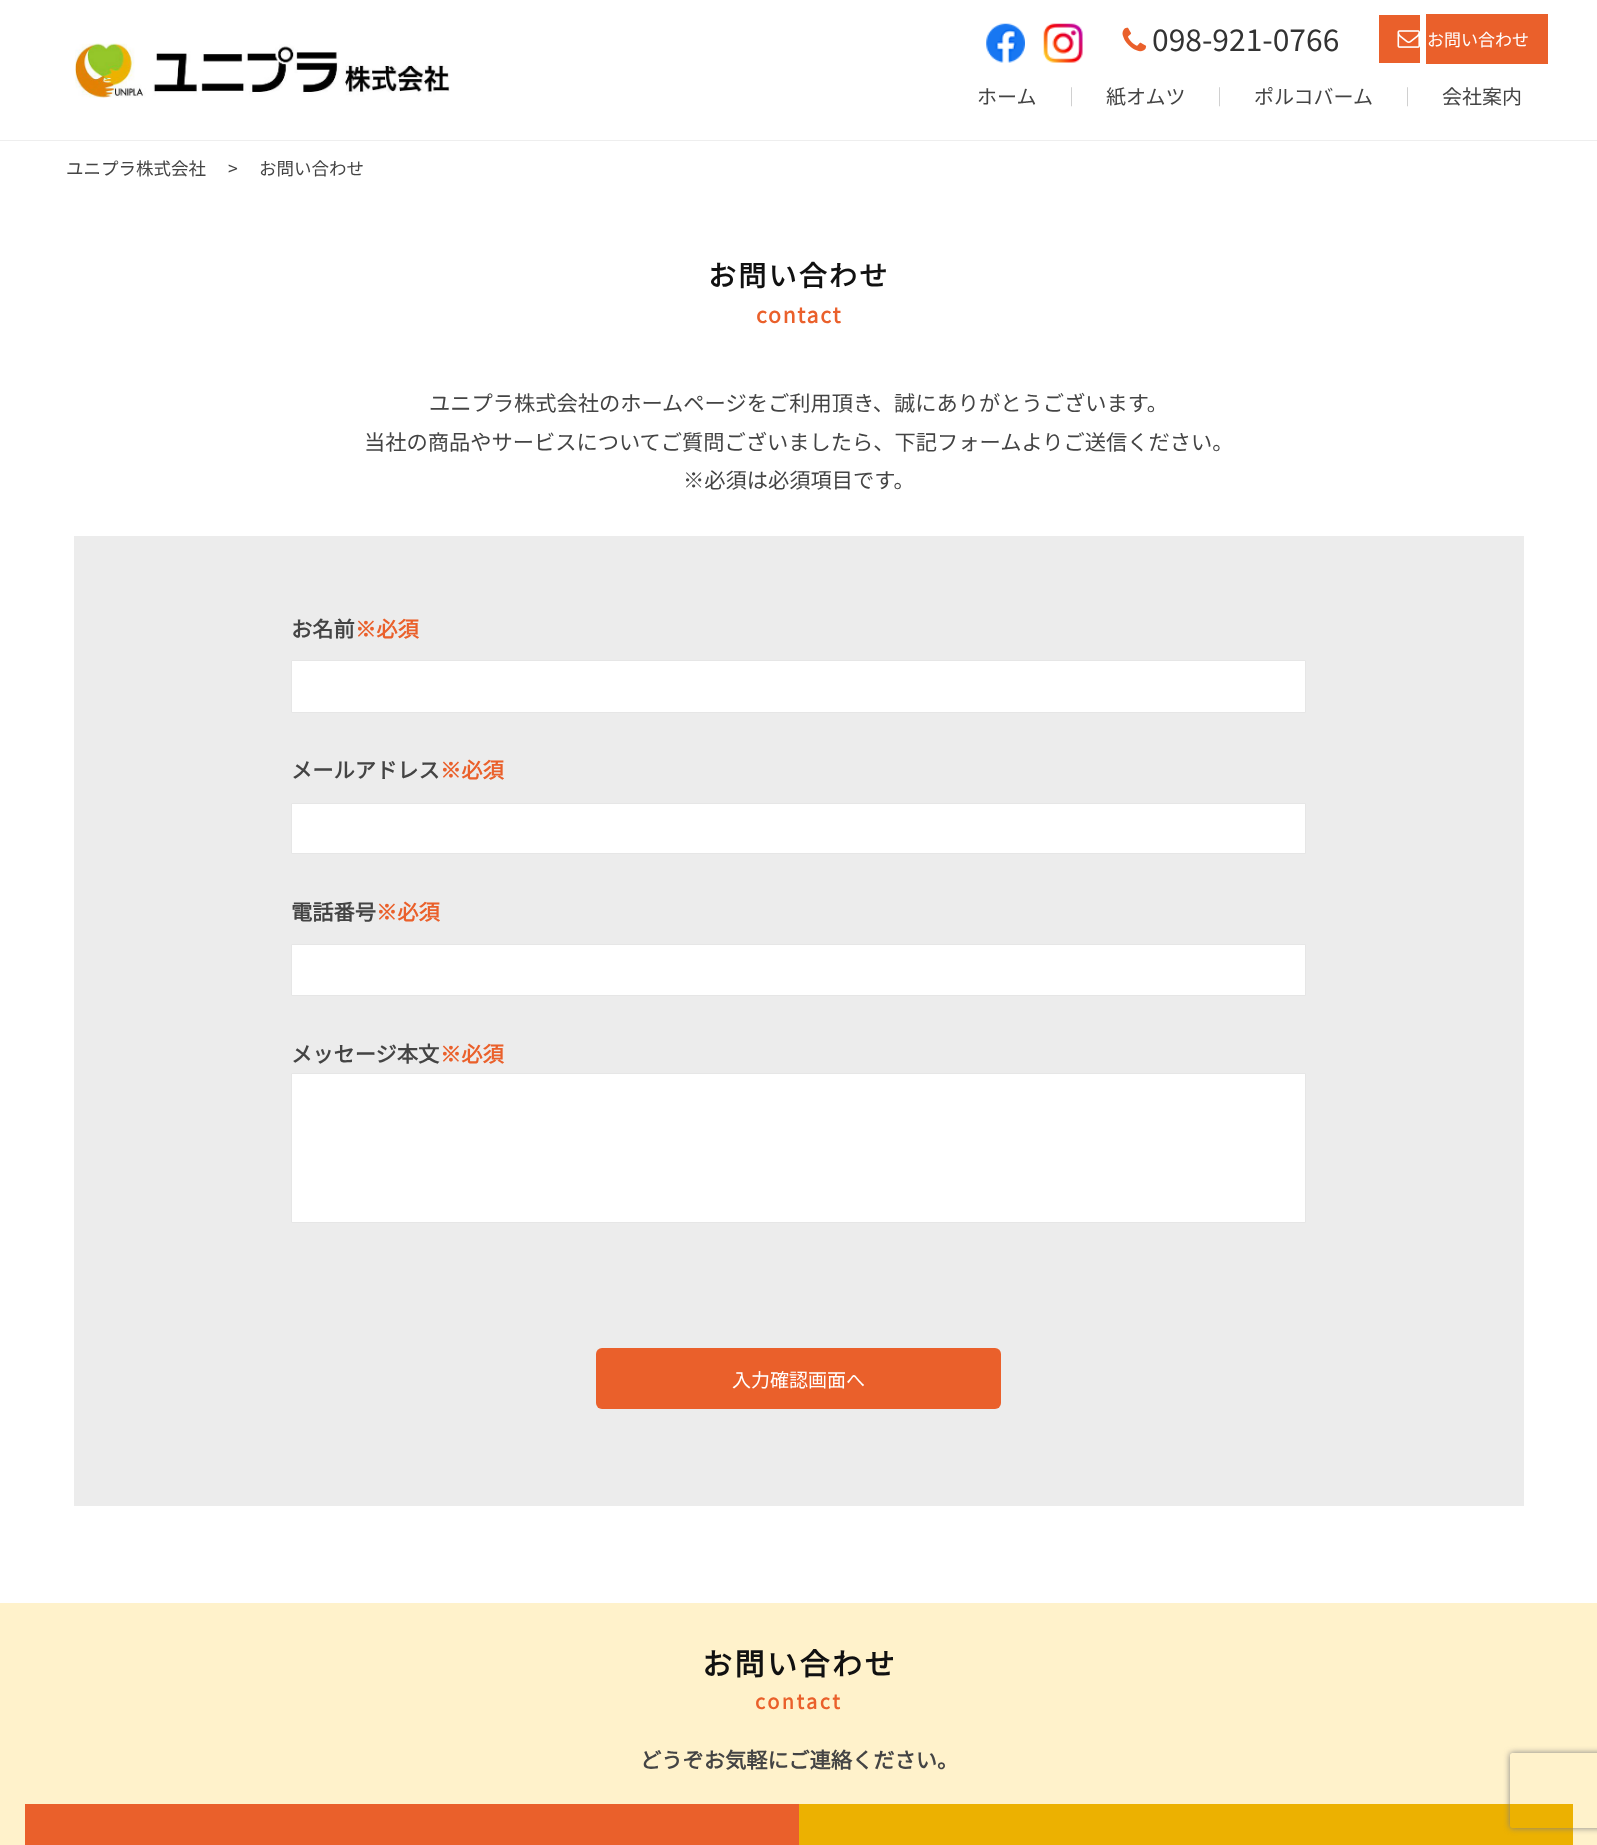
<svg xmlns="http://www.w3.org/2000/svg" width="1597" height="1845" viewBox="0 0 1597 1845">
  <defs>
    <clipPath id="clip1"><path d="M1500 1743H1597V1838H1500ZM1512.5 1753H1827.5C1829 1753 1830 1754 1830 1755.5V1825.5C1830 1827 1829 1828 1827.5 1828H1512.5C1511 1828 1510 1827 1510 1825.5V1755.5C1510 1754 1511 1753 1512.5 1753Z" clip-rule="evenodd"/></clipPath>
  </defs>
  <rect width="100%" height="100%" fill="#fff"/>
  <path d="M0 140h1597v1H0z" fill="#eee"/>
  <image x="986" y="23" width="39" height="40" href="img/1.png"/>
  <image x="1043" y="23" width="40" height="40" href="img/2.png"/>
  <image x="1122" y="27" width="25" height="25" href="img/3.png"/>
  <path d="M1379 15h41v48H1379z" fill="#ea602b"/>
  <image x="1397" y="30" width="23" height="18" href="img/4.png"/>
  <path d="M1426 14h122v50H1426z" fill="#ea602b"/>
  <image x="75" y="43" width="375" height="55" href="img/5.png"/>
  <path d="M74 536h1450v970H74z" fill="#ececec"/>
  <path d="M291.5 660.5h1014v52H291.5z" fill="#fff" stroke="#e6e6e6"/>
  <path d="M291.5 803.5h1014v50H291.5z" fill="#fff" stroke="#e6e6e6"/>
  <path d="M291.5 944.5h1014v51H291.5z" fill="#fff" stroke="#e6e6e6"/>
  <path d="M291.5 1073.5h1014v149H291.5z" fill="#fff" stroke="#e6e6e6"/>
  <rect x="596" y="1348" width="405" height="61" rx="6" fill="#ea602b"/>
  <path d="M0 1603h1597v242H0z" fill="#fff2cb"/>
  <path d="M25 1804h774v41H25z" fill="#ea602b"/>
  <path d="M799 1804h774v41H799z" fill="#ecb101"/>
  <g clip-path="url(#clip1)">
    <rect x="1510" y="1753" width="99" height="75" rx="2.5" fill="#808080" filter="blur(3px)"/>
  </g>
  <text x="1152" y="51" font-family="Noto Sans JP" font-size="30" font-weight="100" fill="#333">098-921-0766</text>
  <text x="1427" y="46" font-family="Noto Sans JP" font-size="17" font-weight="100" fill="#fff">お問い合わせ</text>
  <text x="977" y="104" font-family="Noto Sans JP" font-size="20" font-weight="100" fill="#444">ホーム</text>
  <text x="1062" y="104" font-family="Noto Sans JP" font-size="19" font-weight="100" fill="#c7c7c7">｜</text>
  <text x="1106" y="104" font-family="Noto Sans JP" font-size="20" font-weight="100" fill="#444">紙オムツ</text>
  <text x="1210" y="104" font-family="Noto Sans JP" font-size="19" font-weight="100" fill="#c7c7c7">｜</text>
  <text x="1254" y="104" font-family="Noto Sans JP" font-size="20" font-weight="100" fill="#444">ポルコバーム</text>
  <text x="1398" y="104" font-family="Noto Sans JP" font-size="19" font-weight="100" fill="#c7c7c7">｜</text>
  <text x="1442" y="104" font-family="Noto Sans JP" font-size="20" font-weight="100" fill="#444">会社案内</text>
  <g font-family="Noto Sans JP" font-size="17.5" font-weight="100" fill="#444">
    <text x="66" y="175">ユニプラ株式会社</text>
    <text x="228" y="175">&gt;</text>
    <text x="259" y="175">お問い合わせ</text>
  </g>
  <text x="708" y="286" font-family="Noto Sans JP" font-size="28" font-weight="bold" letter-spacing="2.25" fill="#111">お問い合わせ</text>
  <text x="756" y="323" font-family="Noto Sans JP" font-size="21.25" font-weight="bold" letter-spacing="1.75" fill="#ea602b">contact</text>
  <g font-family="Noto Sans JP" font-size="21.25" font-weight="100" fill="#444">
    <text x="429" y="411">ユニプラ株式会社のホームページをご利用頂き、誠にありがとうございます。</text>
    <text x="364" y="450">当社の商品やサービスについてご質問ございましたら、下記フォームよりご送信ください。</text>
    <text x="683" y="488">※必須は必須項目です。</text>
  </g>
  <text x="291" y="637" font-family="Noto Sans JP" font-size="21.25" font-weight="bold" fill="#444">お名前</text>
  <text x="355" y="637" font-family="Noto Sans JP" font-size="21.25" font-weight="bold" fill="#ea602b">※必須</text>
  <text x="291" y="778" font-family="Noto Sans JP" font-size="21.25" font-weight="bold" fill="#444">メールアドレス</text>
  <text x="440" y="778" font-family="Noto Sans JP" font-size="21.25" font-weight="bold" fill="#ea602b">※必須</text>
  <text x="291" y="920" font-family="Noto Sans JP" font-size="21.25" font-weight="bold" fill="#444">電話番号</text>
  <text x="376" y="920" font-family="Noto Sans JP" font-size="21.25" font-weight="bold" fill="#ea602b">※必須</text>
  <text x="291" y="1062" font-family="Noto Sans JP" font-size="21.25" font-weight="bold" fill="#444">メッセージ本文</text>
  <text x="440" y="1062" font-family="Noto Sans JP" font-size="21.25" font-weight="bold" fill="#ea602b">※必須</text>
  <text x="732" y="1387" font-family="Noto Sans JP" font-size="19" font-weight="100" fill="#fff">入力確認画面へ</text>
  <text x="702" y="1675" font-family="Noto Sans JP" font-size="30" font-weight="bold" letter-spacing="2.5" fill="#111">お問い合わせ</text>
  <text x="755" y="1709" font-family="Noto Sans JP" font-size="20" font-weight="bold" letter-spacing="2.5" fill="#ea602b">contact</text>
  <text x="640" y="1768" font-family="Noto Sans JP" font-size="21.25" font-weight="bold" fill="#444">どうぞお気軽にご連絡ください。</text>
</svg>
